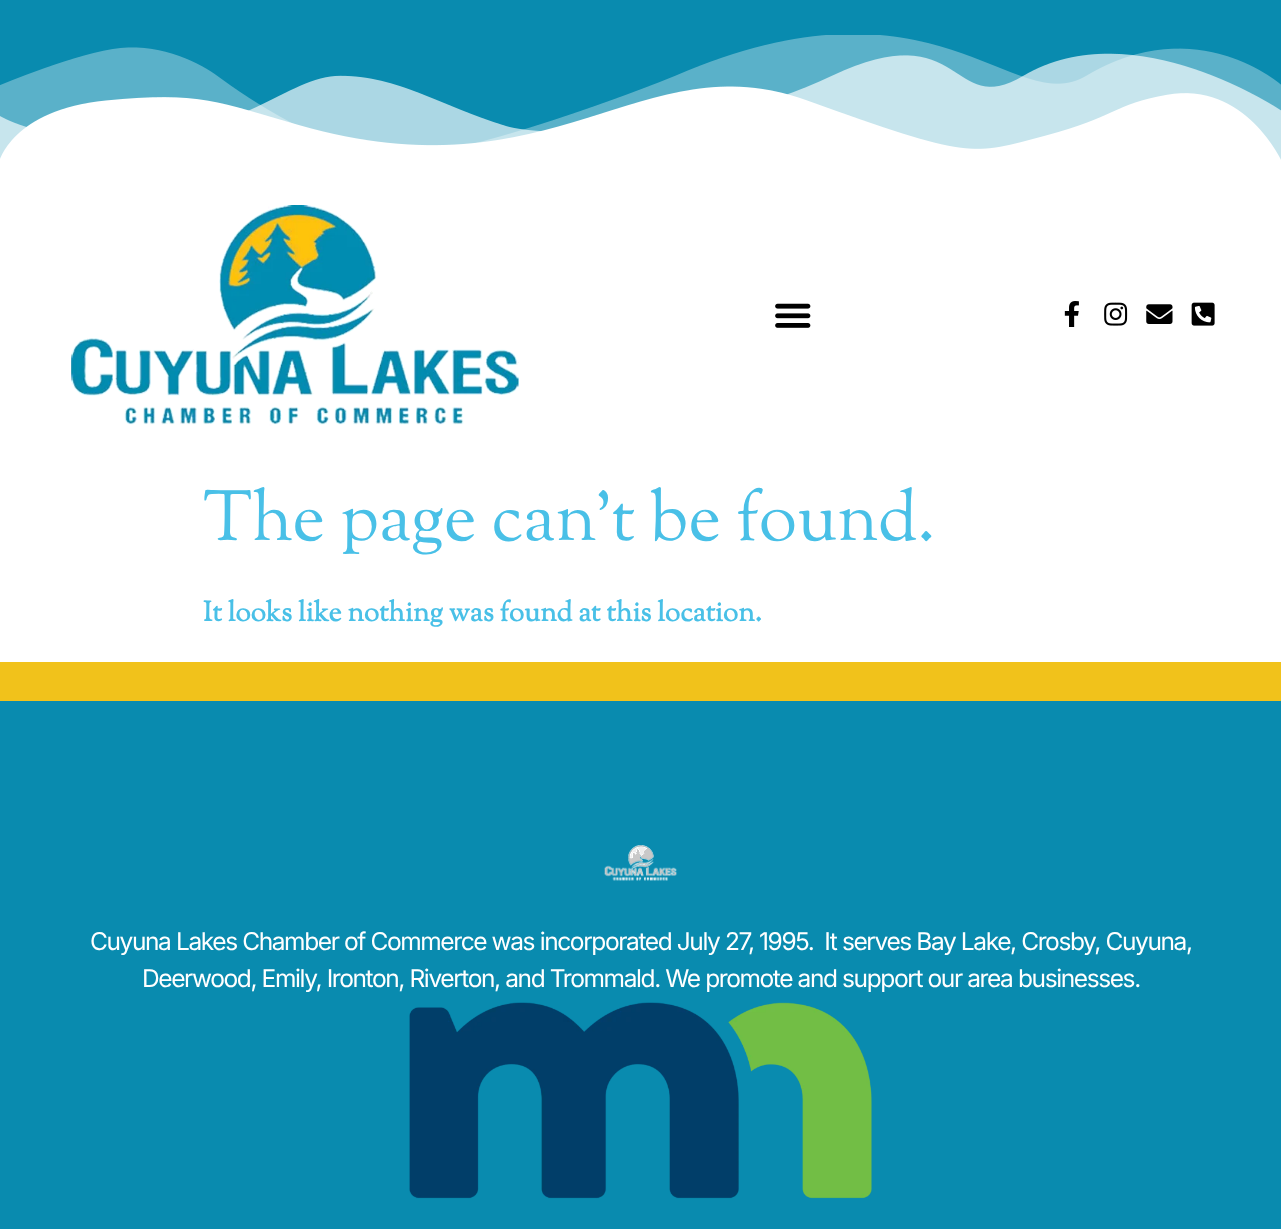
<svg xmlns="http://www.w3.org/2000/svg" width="1281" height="1229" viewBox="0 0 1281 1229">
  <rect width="100%" height="100%" fill="#fff"/>
  <path d="M0 0h1281v160H0z" fill="#098baf"/>
  <image x="0" y="35" width="1281" height="126" href="img/1.png"/>
  <image x="71" y="205" width="448" height="221" href="img/2.png"/>
  <image x="775" y="303" width="36" height="25" href="img/3.png"/>
  <image x="1064" y="301" width="15" height="26" href="img/4.png"/>
  <image x="1104" y="302" width="24" height="24" href="img/5.png"/>
  <image x="1146" y="304" width="27" height="20" href="img/6.png"/>
  <image x="1191" y="302" width="24" height="24" href="img/7.png"/>
  <path d="M0 701h1281v528H0z" fill="#098baf"/>
  <path d="M0 662h1281v39H0z" fill="#f1c21b"/>
  <image x="604" y="845" width="73" height="36" href="img/8.png"/>
  <image x="409" y="1002" width="463" height="197" href="img/9.png"/>
  <text x="203" y="540" font-family="Sorts Mill Goudy" font-size="70" fill="#49c0e7">The page can’t be found.</text>
  <text x="203" y="621" font-family="Sorts Mill Goudy" font-size="28" font-weight="bold" fill="#49c0e7">It looks like nothing was found at this location.</text>
  <g font-family="Inter" font-size="24.5" letter-spacing="-1.4" fill="#fff">
    <text x="90" y="950" xml:space="preserve">Cuyuna Lakes Chamber of Commerce was incorporated July 27, 1995.  It serves Bay Lake, Crosby, Cuyuna,</text>
    <text x="142" y="987">Deerwood, Emily, Ironton, Riverton, and Trommald. We promote and support our area businesses.</text>
  </g>
</svg>
